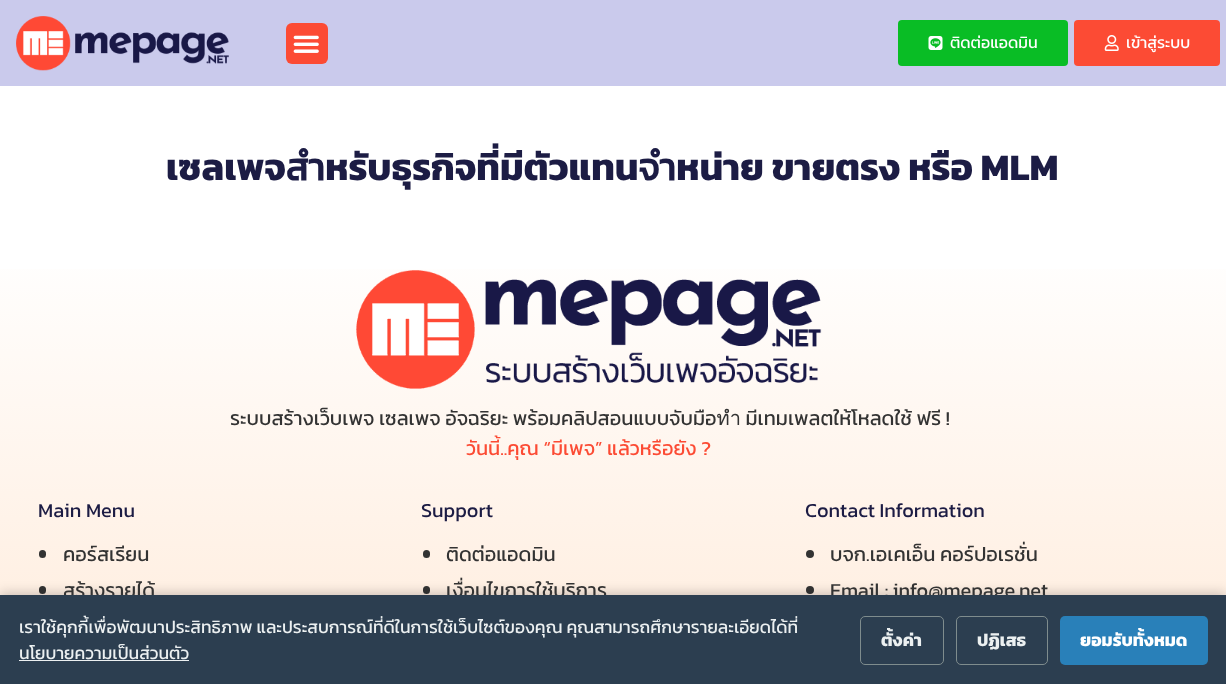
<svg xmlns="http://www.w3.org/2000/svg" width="1226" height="684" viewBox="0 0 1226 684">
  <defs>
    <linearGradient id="g1" gradientUnits="userSpaceOnUse" x1="613" y1="237" x2="613" y2="660"><stop offset="0" stop-color="#fff"/><stop offset="1" stop-color="#ffedde"/></linearGradient>
  </defs>
  <rect width="100%" height="100%" fill="#fff"/>
  <path d="M0 0h1226v86H0z" fill="#cacaec"/>
  <image x="16" y="16" width="213" height="55" href="img/1.png"/>
  <rect x="286" y="23" width="42" height="41" rx="6" fill="#fc4b34"/>
  <image x="293" y="35" width="26" height="18" href="img/2.png"/>
  <rect x="898" y="20" width="170" height="46" rx="4" fill="#09bd25"/>
  <rect x="1074" y="20" width="146" height="46" rx="4" fill="#fc4b34"/>
  <image x="1104" y="35" width="15" height="16" href="img/4.png"/>
  <path d="M0 269h1226v326H0z" fill="url(#g1)"/>
  <image x="356" y="270" width="466" height="119" href="img/5.png"/>
  <rect x="39" y="550" width="7" height="8" rx="3.5" fill="#333"/>
  <rect x="39" y="586" width="7" height="8" rx="3.5" fill="#333"/>
  <rect x="423" y="550" width="7" height="8" rx="3.5" fill="#333"/>
  <rect x="423" y="586" width="7" height="8" rx="3.5" fill="#333"/>
  <circle cx="810" cy="554" r="4" fill="#333"/>
  <circle cx="810" cy="590" r="4" fill="#333"/>
  <path d="M0 593h1226v90H0z" fill="#00000033" filter="blur(6px)"/>
  <text x="950" y="48" font-family="Kanit" font-size="16" fill="#fff">ติดต่อแอดมิน</text>
  <image x="928" y="36" width="15" height="14" href="img/3.png"/>
  <text x="1126" y="48" font-family="Kanit" font-size="16" fill="#fff">เข้าสู่ระบบ</text>
  <text x="166" y="180" font-family="Kanit" font-size="37.5" font-weight="bold" fill="#1c1c44">เซลเพจสำหรับธุรกิจที่มีตัวแทนจำหน่าย ขายตรง หรือ MLM</text>
  <text x="230" y="425" font-family="Kanit" font-size="20" fill="#333">ระบบสร้างเว็บเพจ เซลเพจ อัจฉริยะ พร้อมคลิปสอนแบบจับมือทำ มีเทมเพลตให้โหลดใช้ ฟรี !</text>
  <text x="466" y="455" font-family="Kanit" font-size="20" fill="#fc4b34">วันนี้..คุณ “มีเพจ” แล้วหรือยัง ?</text>
  <text x="38" y="517" font-family="Kanit" font-size="20" fill="#1c1c44">Main Menu</text>
  <g font-family="Kanit" font-size="20" fill="#333">
    <text x="63" y="561">คอร์สเรียน</text>
    <text x="63" y="597">สร้างรายได้</text>
  </g>
  <text x="421" y="517" font-family="Kanit" font-size="20" fill="#1c1c44">Support</text>
  <g font-family="Kanit" font-size="20" fill="#333">
    <text x="446" y="561">ติดต่อแอดมิน</text>
    <text x="446" y="597">เงื่อนไขการใช้บริการ</text>
  </g>
  <text x="805" y="517" font-family="Kanit" font-size="20" fill="#1c1c44">Contact Information</text>
  <g font-family="Kanit" font-size="20" fill="#333">
    <text x="830" y="561">บจก.เอเคเอ็น คอร์ปอเรชั่น</text>
    <text x="830" y="597">Email : info@mepage.net</text>
  </g>
  <path d="M0 595h1226v89H0z" fill="#2c3e50"/>
  <g font-family="Kanit" font-size="17.5" fill="#ecf0f1">
    <text x="19" y="633">เราใช้คุกกี้เพื่อพัฒนาประสิทธิภาพ และประสบการณ์ที่ดีในการใช้เว็บไซต์ของคุณ คุณสามารถศึกษารายละเอียดได้ที่</text>
    <text x="19" y="659">นโยบายความเป็นส่วนตัว</text>
  </g>
  <path d="M19 660h170v1H19z" fill="#ecf0f1"/>
  <rect x="860.5" y="616.5" width="83" height="48" rx="4.5" fill="none" stroke="#7f8c8d"/>
  <text x="881" y="646" font-family="Kanit" font-size="17.5" font-weight="bold" fill="#ecf0f1">ตั้งค่า</text>
  <rect x="956.5" y="616.5" width="91" height="48" rx="4.5" fill="none" stroke="#7f8c8d"/>
  <text x="977" y="646" font-family="Kanit" font-size="17.5" font-weight="bold" fill="#ecf0f1">ปฏิเสธ</text>
  <rect x="1060" y="616" width="148" height="49" rx="5" fill="#2980b9"/>
  <text x="1080" y="646" font-family="Kanit" font-size="17.5" font-weight="bold" fill="#fff">ยอมรับทั้งหมด</text>
</svg>
